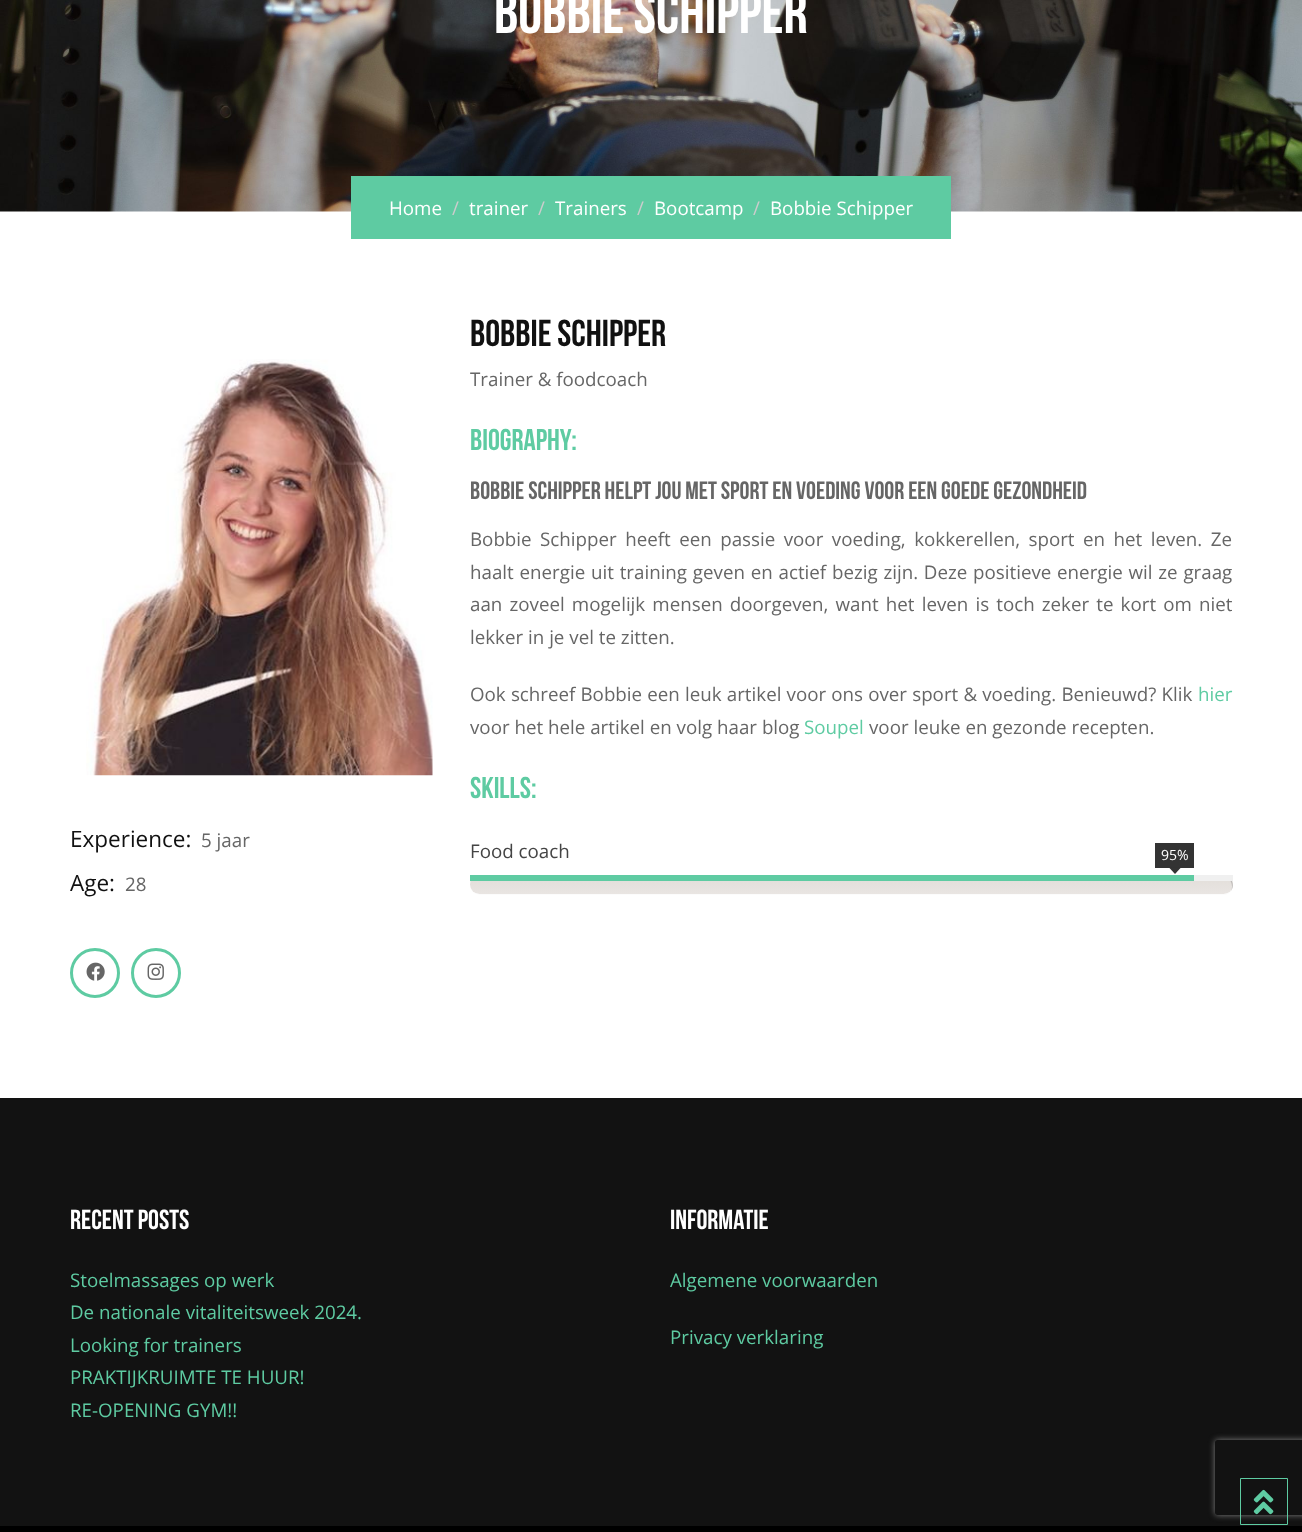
<svg xmlns="http://www.w3.org/2000/svg" width="1302" height="1532" viewBox="0 0 1302 1532">
  <defs>
    <linearGradient id="g1" gradientUnits="userSpaceOnUse" x1="851" y1="875" x2="851" y2="894"><stop offset="0" stop-color="#e1ddd9"/><stop offset="1" stop-color="#e9e5e2"/></linearGradient>
    <clipPath id="clip1"><path d="M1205 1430H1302V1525H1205ZM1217.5 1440H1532.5C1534 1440 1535 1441 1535 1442.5V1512.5C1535 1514 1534 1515 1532.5 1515H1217.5C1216 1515 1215 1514 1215 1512.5V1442.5C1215 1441 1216 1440 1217.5 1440Z" clip-rule="evenodd"/></clipPath>
  </defs>
  <rect width="100%" height="100%" fill="#fff"/>
  <image x="0" y="0" width="1302" height="212" href="img/1.png"/>
  <path d="M351 176h600v63H351z" fill="#5ecba2"/>
  <image x="86" y="359" width="347" height="417" href="img/2.png"/>
  <circle cx="95" cy="973" r="23.5" fill="none" stroke="#5ecba2" stroke-width="3"/>
  <image x="86" y="962" width="19" height="19" href="img/3.png"/>
  <circle cx="156" cy="973" r="23.5" fill="none" stroke="#5ecba2" stroke-width="3"/>
  <image x="147" y="963" width="17" height="17" href="img/4.png"/>
  <path d="M470 885C470 889 472 893 476 894L480 895H1225C1232 894 1235 886 1232 881V884C1232 890 1228 894 1223 894H479C474 894 470 890 470 885Z" fill="#fcfcfc"/>
  <rect x="470" y="875" width="763" height="19" rx="9.5" fill="url(#g1)"/>
  <path d="M479 876H1223C1230 876 1234 885 1231 891C1235 885 1232 877 1225 875H480C474 875 470 880 470 885C470 880 474 876 479 876Z" fill="#bebbb9"/>
  <path d="M1194 875h39v6H1194z" fill="#f0f0f0"/>
  <path d="M470 875h724v6H470z" fill="#5ecba2"/>
  <path d="M1155 843h39v25H1155z" fill="#333"/>
  <path d="M1169 867.5H1181L1175 874Z" fill="#333"/>
  <path d="M0 1098h1302v428H0z" fill="#121212"/>
  <path d="M0 1526h1302v6H0z" fill="#000"/>
  <g clip-path="url(#clip1)">
    <rect x="1215" y="1440" width="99" height="75" rx="2.5" fill="#808080" filter="blur(3px)"/>
  </g>
  <path d="M1240.5 1478.5h47v46H1240.5z" fill="none" stroke="#5ecba2"/>
  <image x="1253" y="1489" width="21" height="26" href="img/5.png"/>
  <text x="494" y="33" font-family="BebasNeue" font-size="60" fill="#fff">Bobbie Schipper</text>
  <text x="389" y="215" font-family="Open Sans" font-size="18.75" fill="#fff">Home</text>
  <text x="452" y="215" font-family="Open Sans" font-size="18.75" fill="#ccc">/</text>
  <text x="469" y="215" font-family="Open Sans" font-size="18.75" fill="#fff">trainer</text>
  <text x="538" y="215" font-family="Open Sans" font-size="18.75" fill="#ccc">/</text>
  <text x="555" y="215" font-family="Open Sans" font-size="18.75" fill="#fff">Trainers</text>
  <text x="637" y="215" font-family="Open Sans" font-size="18.75" fill="#ccc">/</text>
  <text x="654" y="215" font-family="Open Sans" font-size="18.75" fill="#fff">Bootcamp</text>
  <text x="753" y="215" font-family="Open Sans" font-size="18.75" fill="#ccc">/</text>
  <text x="770" y="215" font-family="Open Sans" font-size="18.75" fill="#fff">Bobbie Schipper</text>
  <text x="70" y="847" font-family="Open Sans" font-size="22.5" fill="#111">Experience:</text>
  <text x="201" y="847" font-family="Open Sans" font-size="18.75" fill="#666">5 jaar</text>
  <text x="70" y="891" font-family="Open Sans" font-size="22.5" fill="#111">Age:</text>
  <text x="125" y="891" font-family="Open Sans" font-size="18.75" fill="#666">28</text>
  <text x="470" y="346" font-family="BebasNeue" font-size="37.5" fill="#111">Bobbie Schipper</text>
  <text x="470" y="386" font-family="Open Sans" font-size="18.75" fill="#666">Trainer &amp; foodcoach</text>
  <text x="470" y="450" font-family="BebasNeue" font-size="30" fill="#5ecba2">Biography:</text>
  <text x="470" y="499" font-family="BebasNeue" font-size="25" fill="#666">Bobbie Schipper helpt jou met sport en voeding voor een goede gezondheid</text>
  <g font-family="Open Sans" font-size="18.75" fill="#666">
    <text x="470" y="546" word-spacing="3.6">Bobbie Schipper heeft een passie voor voeding, kokkerellen, sport en het leven. Ze</text>
    <text x="470" y="579" word-spacing="0.9">haalt energie uit training geven en actief bezig zijn. Deze positieve energie wil ze graag</text>
    <text x="470" y="611" word-spacing="2.25">aan zoveel mogelijk mensen doorgeven, want het leven is toch zeker te kort om niet</text>
    <text x="470" y="644">lekker in je vel te zitten.</text>
    <text x="470" y="701" word-spacing="0.3">Ook schreef Bobbie een leuk artikel voor ons over sport &amp; voeding. Benieuwd? Klik</text>
  </g>
  <text x="1198" y="701" font-family="Open Sans" font-size="18.75" fill="#5ecba2">hier</text>
  <text x="470" y="734" font-family="Open Sans" font-size="18.75" fill="#666">voor het hele artikel en volg haar blog</text>
  <text x="804" y="734" font-family="Open Sans" font-size="18.75" fill="#5ecba2">Soupel</text>
  <text x="869" y="734" font-family="Open Sans" font-size="18.75" fill="#666">voor leuke en gezonde recepten.</text>
  <text x="470" y="798" font-family="BebasNeue" font-size="30" fill="#5ecba2">Skills:</text>
  <text x="470" y="858" font-family="Open Sans" font-size="18.75" fill="#444">Food coach</text>
  <text x="1161" y="860" font-family="Open Sans" font-size="14" fill="#fff">95%</text>
  <text x="70" y="1229" font-family="BebasNeue" font-size="27.5" fill="#fff">Recent Posts</text>
  <g font-family="Open Sans" font-size="18.75" fill="#5ecba2">
    <text x="70" y="1287">Stoelmassages op werk</text>
    <text x="70" y="1319">De nationale vitaliteitsweek 2024.</text>
    <text x="70" y="1352">Looking for trainers</text>
    <text x="70" y="1384">PRAKTIJKRUIMTE TE HUUR!</text>
    <text x="70" y="1417">RE-OPENING GYM!!</text>
  </g>
  <text x="670" y="1229" font-family="BebasNeue" font-size="27.5" fill="#fff">Informatie</text>
  <g font-family="Open Sans" font-size="18.75" fill="#5ecba2">
    <text x="670" y="1287">Algemene voorwaarden</text>
    <text x="670" y="1344">Privacy verklaring</text>
  </g>
</svg>
